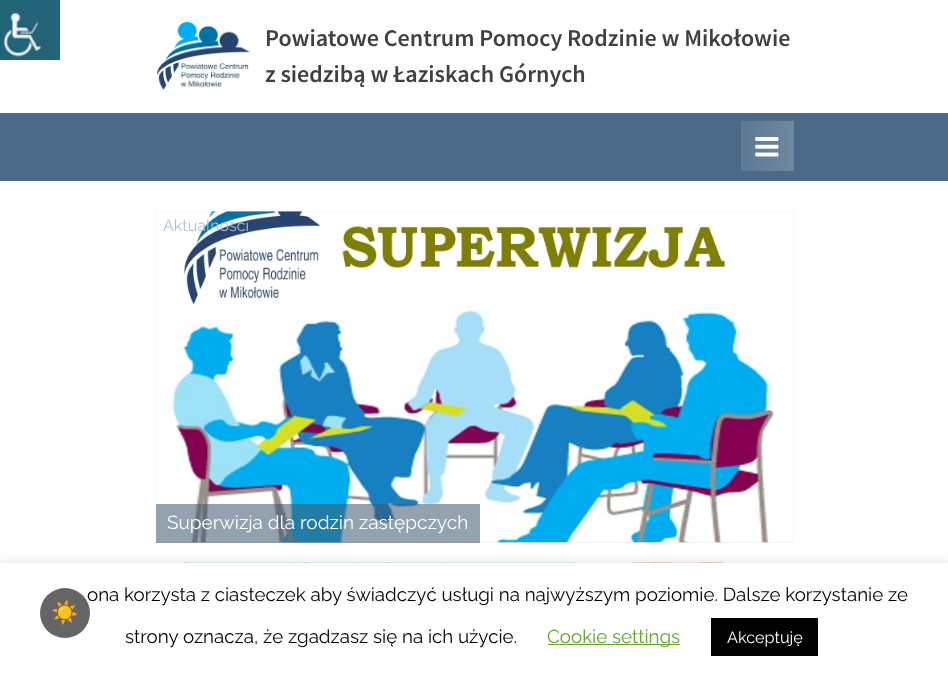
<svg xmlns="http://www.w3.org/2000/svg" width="948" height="677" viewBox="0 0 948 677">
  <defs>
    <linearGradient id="g1" gradientUnits="userSpaceOnUse" x1="649" y1="146" x2="744" y2="146"><stop offset="0" stop-color="#5d7994"/><stop offset="0.51" stop-color="#6f88a0"/><stop offset="1" stop-color="#5d7994"/></linearGradient>
    <linearGradient id="g2" gradientUnits="userSpaceOnUse" x1="744" y1="146" x2="839" y2="146"><stop offset="0" stop-color="#5d7994"/><stop offset="0.51" stop-color="#6f88a0"/><stop offset="1" stop-color="#5d7994"/></linearGradient>
  </defs>
  <rect width="100%" height="100%" fill="#fff"/>
  <image x="0" y="0" width="60" height="60" href="img/1.png"/>
  <image x="157" y="21" width="93" height="70" href="img/2.png"/>
  <path d="M0 113h948v68H0z" fill="#4b6a88"/>
  <path d="M741 121h3v50H741z" fill="url(#g1)"/>
  <path d="M744 121h50v50H744z" fill="url(#g2)"/>
  <image x="755" y="137" width="24" height="20" href="img/3.png"/>
  <path d="M156 211h638v332H156z" fill="#eee"/>
  <image x="156" y="211" width="638" height="332" href="img/4.png"/>
  <path d="M156 504h324v39H156z" fill="#3c556d8c"/>
  <image x="156" y="562" width="638" height="1" href="img/5.png"/>
  <path d="M0 561h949v115H0z" fill="#acabab4d" filter="blur(6px)"/>
  <path d="M0 563h948v114H0z" fill="#fff"/>
  <path d="M548 644h132v1H548z" fill="#62a329"/>
  <path d="M711 618h107v38H711z" fill="#000"/>
  <g font-family="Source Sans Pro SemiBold" font-size="24" font-weight="600" fill="#404040">
    <text x="265" y="46">Powiatowe Centrum Pomocy Rodzinie w Mikołowie</text>
    <text x="265" y="82">z siedzibą w Łaziskach Górnych</text>
  </g>
  <text x="163" y="231" font-family="Raleway" font-size="16" font-weight="100" fill="#aec2d2">Aktualności</text>
  <text x="167" y="529" font-family="Raleway" font-size="19" font-weight="100" fill="#fff">Superwizja dla rodzin zastępczych</text>
  <text x="87" y="601" font-family="Raleway" font-size="18.75" font-weight="100" fill="#000">ona korzysta z ciasteczek aby świadczyć usługi na najwyższym poziomie. Dalsze korzystanie ze</text>
  <circle cx="65" cy="613" r="25" fill="#656565"/>
  <text x="51" y="620" font-family="Noto Color Emoji" font-size="22" font-weight="bold" fill="#eee">☀️</text>
  <text x="125" y="643" font-family="Raleway" font-size="18.75" font-weight="100" fill="#000">strony oznacza, że zgadzasz się na ich użycie.</text>
  <text x="547" y="643" font-family="Raleway" font-size="18.75" font-weight="100" fill="#62a329">Cookie settings</text>
  <text x="727" y="643" font-family="Raleway" font-size="16.25" font-weight="100" fill="#fff">Akceptuję</text>
</svg>
